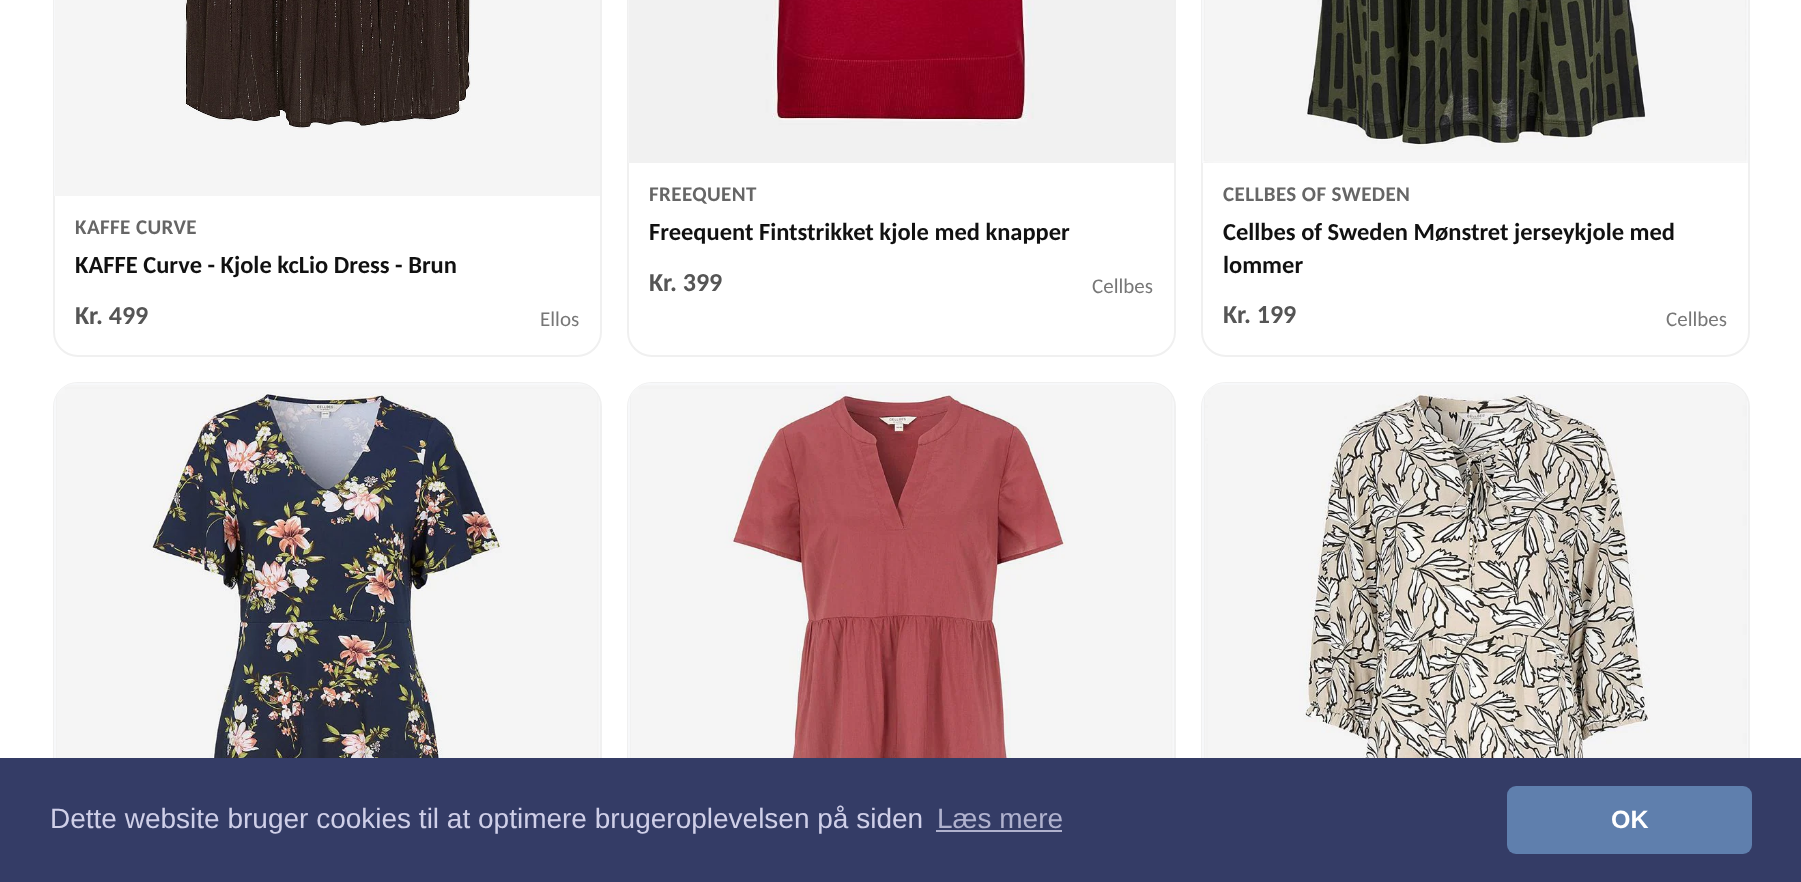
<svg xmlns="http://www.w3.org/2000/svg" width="1801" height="882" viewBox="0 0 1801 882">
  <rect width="100%" height="100%" fill="#fff"/>
  <rect x="54" y="-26" width="547" height="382" rx="24" fill="none" stroke="#f0f0f0" stroke-width="2"/>
  <path d="M54 0h1v196H54z" fill="#f7f8fa"/>
  <image x="55" y="0" width="545" height="196" href="img/1.png"/>
  <rect x="628" y="-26" width="547" height="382" rx="24" fill="none" stroke="#f0f0f0" stroke-width="2"/>
  <path d="M628 0h1v163H628z" fill="#f7f8fa"/>
  <image x="628" y="0" width="546" height="163" href="img/2.png"/>
  <rect x="1202" y="-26" width="547" height="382" rx="24" fill="none" stroke="#f0f0f0" stroke-width="2"/>
  <path d="M1202 0h546v163H1202z" fill="#f7f8fa"/>
  <image x="1203" y="0" width="544" height="163" href="img/3.png"/>
  <rect x="54" y="383" width="547" height="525" rx="24" fill="none" stroke="#f0f0f0" stroke-width="2"/>
  <path d="M77 383H577C589.5 383 600 393.5 600 406V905H54V406C54 393.5 64.5 383 77 383Z" fill="#f7f8fa"/>
  <image x="56" y="385" width="543" height="373" href="img/4.png"/>
  <rect x="628" y="383" width="547" height="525" rx="24" fill="none" stroke="#f0f0f0" stroke-width="2"/>
  <path d="M651 383H1151C1163.5 383 1174 393.5 1174 406V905H628V406C628 393.5 638.5 383 651 383Z" fill="#f7f8fa"/>
  <image x="630" y="385" width="543" height="373" href="img/5.png"/>
  <rect x="1202" y="383" width="547" height="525" rx="24" fill="none" stroke="#f0f0f0" stroke-width="2"/>
  <path d="M1225 383H1725C1737.5 383 1748 393.5 1748 406V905H1202V406C1202 393.5 1212.5 383 1225 383Z" fill="#f7f8fa"/>
  <image x="1204" y="385" width="543" height="373" href="img/6.png"/>
  <path d="M0 758h1801v124H0z" fill="#343c66"/>
  <path d="M936 830h126v2H936z" fill="#b0b2ce"/>
  <rect x="1507" y="786" width="245" height="68" rx="9" fill="#5f7fad"/>
  <text x="75" y="234" font-family="Carlito" font-size="21" font-weight="bold" letter-spacing="0.4" fill="#666">KAFFE CURVE</text>
  <text x="75" y="273" font-family="Carlito" font-size="24.5" font-weight="bold" fill="#111">KAFFE Curve - Kjole kcLio Dress - Brun</text>
  <text x="75" y="324" font-family="Carlito" font-size="26" font-weight="bold" fill="#555">Kr. 499</text>
  <text x="540" y="326" font-family="Carlito" font-size="21" fill="#777">Ellos</text>
  <text x="649" y="201" font-family="Carlito" font-size="21" font-weight="bold" letter-spacing="0.4" fill="#666">FREEQUENT</text>
  <text x="649" y="240" font-family="Carlito" font-size="24.5" font-weight="bold" fill="#111">Freequent Fintstrikket kjole med knapper</text>
  <text x="649" y="291" font-family="Carlito" font-size="26" font-weight="bold" fill="#555">Kr. 399</text>
  <text x="1092" y="293" font-family="Carlito" font-size="21" fill="#777">Cellbes</text>
  <text x="1223" y="201" font-family="Carlito" font-size="21" font-weight="bold" letter-spacing="0.4" fill="#666">CELLBES OF SWEDEN</text>
  <g font-family="Carlito" font-size="24.5" font-weight="bold" fill="#111">
    <text x="1223" y="240">Cellbes of Sweden Mønstret jerseykjole med</text>
    <text x="1223" y="273">lommer</text>
  </g>
  <text x="1223" y="323" font-family="Carlito" font-size="26" font-weight="bold" fill="#555">Kr. 199</text>
  <text x="1666" y="326" font-family="Carlito" font-size="21" fill="#777">Cellbes</text>
  <text x="50" y="828" font-family="Liberation Sans" font-size="28" fill="#cfcfe8">Dette website bruger cookies til at optimere brugeroplevelsen på siden</text>
  <text x="937" y="828" font-family="Liberation Sans" font-size="28" fill="#b0b2ce">Læs mere</text>
  <text x="1611" y="828" font-family="Liberation Sans" font-size="25" font-weight="bold" fill="#fff">OK</text>
</svg>
